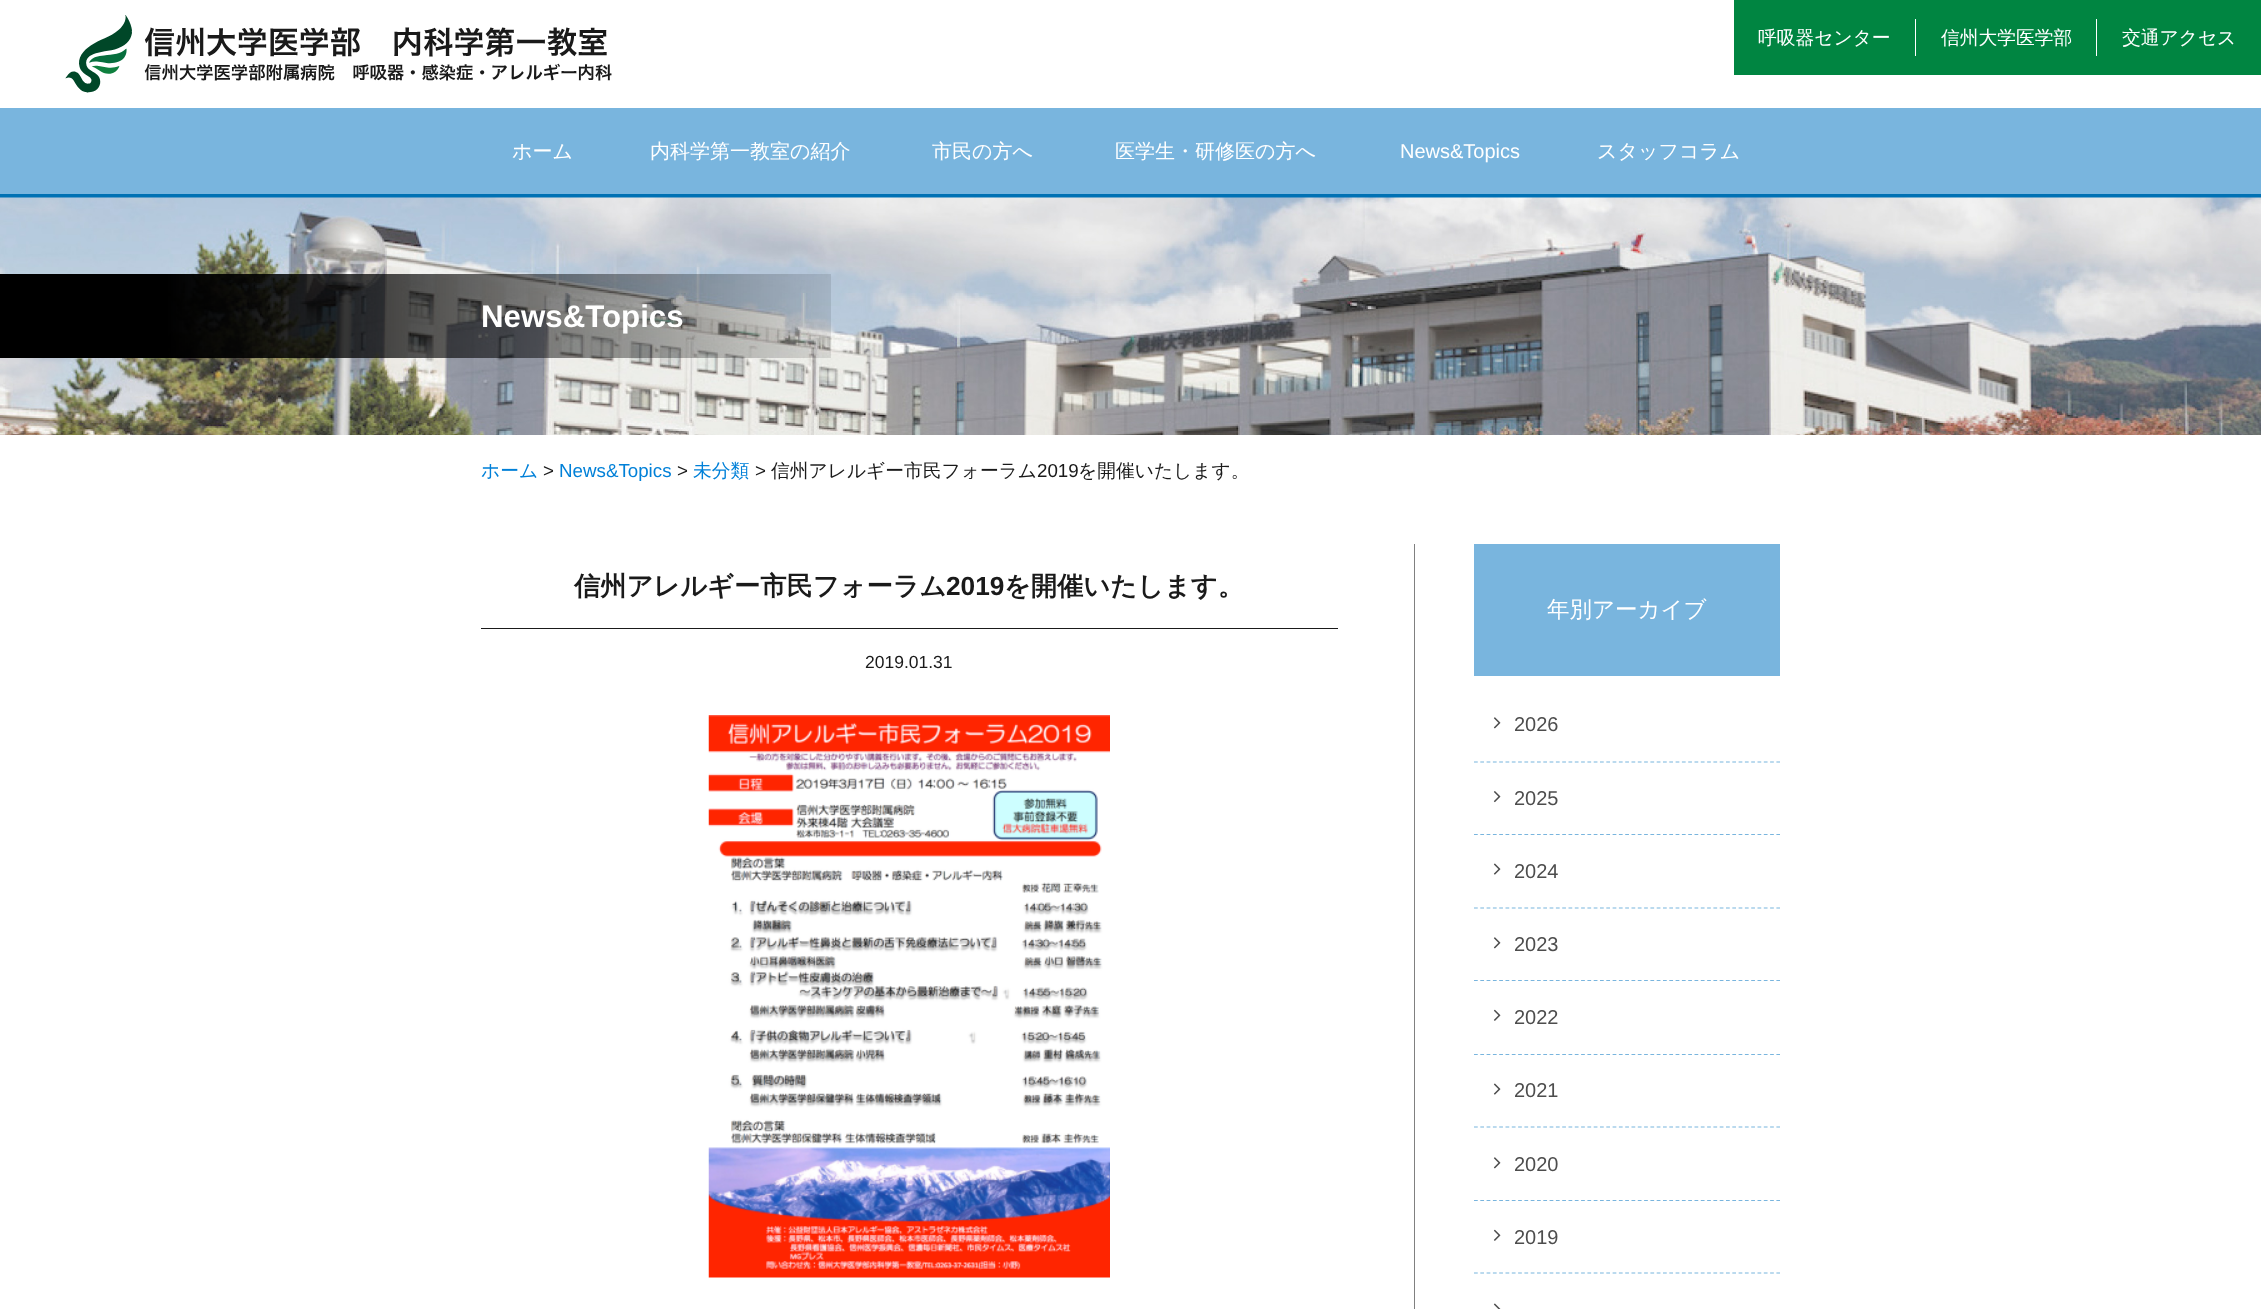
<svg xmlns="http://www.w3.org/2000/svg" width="2261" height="1309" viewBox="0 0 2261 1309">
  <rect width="100%" height="100%" fill="#fff"/>
  <image x="65" y="15" width="547" height="78" href="img/1.png"/>
  <path d="M1734 0h527v75H1734z" fill="#008541"/>
  <path d="M1915 19h1v37H1915z" fill="#fff"/>
  <path d="M2096 19h1v37H2096z" fill="#fff"/>
  <path d="M0 108h2261v86H0z" fill="#79b5de"/>
  <path d="M0 194h2261v4H0z" fill="#0071b4"/>
  <image x="0" y="197" width="2261" height="238" href="img/2.png"/>
  <path d="M481 628h857v1H481z" fill="#1a1a1a"/>
  <image x="708" y="715" width="402" height="563" href="img/3.png"/>
  <path d="M1414 544h1v765H1414z" fill="#808080"/>
  <path d="M1474 544h306v132H1474z" fill="#79b5de"/>
  <path d="M1474 762H1780" fill="none" stroke="#79b5de" stroke-width="1.2" stroke-dasharray="3.75 2.55"/>
  <image x="1493" y="717" width="8" height="12" href="img/4.png"/>
  <path d="M1474 834.5H1780" fill="none" stroke="#79b5de" stroke-width="1.2" stroke-dasharray="3.75 2.55"/>
  <image x="1493" y="791" width="8" height="12" href="img/5.png"/>
  <path d="M1474 908H1780" fill="none" stroke="#79b5de" stroke-width="1.2" stroke-dasharray="3.75 2.55"/>
  <image x="1493" y="863" width="8" height="12" href="img/6.png"/>
  <path d="M1474 980.5H1780" fill="none" stroke="#79b5de" stroke-width="1.2" stroke-dasharray="3.75 2.55"/>
  <image x="1493" y="937" width="8" height="12" href="img/4.png"/>
  <path d="M1474 1054.5H1780" fill="none" stroke="#79b5de" stroke-width="1.2" stroke-dasharray="3.75 2.55"/>
  <image x="1493" y="1009" width="8" height="12" href="img/7.png"/>
  <path d="M1474 1127H1780" fill="none" stroke="#79b5de" stroke-width="1.2" stroke-dasharray="3.75 2.55"/>
  <image x="1493" y="1083" width="8" height="12" href="img/6.png"/>
  <path d="M1474 1200.5H1780" fill="none" stroke="#79b5de" stroke-width="1.2" stroke-dasharray="3.75 2.55"/>
  <image x="1493" y="1157" width="8" height="12" href="img/4.png"/>
  <path d="M1474 1273H1780" fill="none" stroke="#79b5de" stroke-width="1.2" stroke-dasharray="3.75 2.55"/>
  <image x="1493" y="1229" width="8" height="12" href="img/7.png"/>
  <image x="1493" y="1303" width="8" height="6" href="img/8.png"/>
  <g font-family="WenQuanYi Zen Hei" font-size="18.75" font-weight="500" fill="#fff">
    <text x="1758" y="44">呼吸器センター</text>
    <text x="1941" y="44">信州大学医学部</text>
    <text x="2122" y="44">交通アクセス</text>
  </g>
  <g font-family="WenQuanYi Zen Hei" font-size="20" font-weight="500" fill="#fff">
    <text x="512" y="158">ホーム</text>
    <text x="650" y="158">内科学第一教室の紹介</text>
    <text x="932" y="158">市民の方へ</text>
    <text x="1115" y="158">医学生・研修医の方へ</text>
  </g>
  <text x="1400" y="158" font-family="Liberation Sans" font-size="20" fill="#fff">News&amp;Topics</text>
  <text x="1597" y="158" font-family="WenQuanYi Zen Hei" font-size="20" font-weight="500" fill="#fff">スタッフコラム</text>
  <text x="481" y="327" font-family="Liberation Sans" font-size="31.25" font-weight="bold" fill="#fff">News&amp;Topics</text>
  <text x="481" y="477" font-family="WenQuanYi Zen Hei" font-size="18.75" font-weight="500" fill="#0080d8">ホーム</text>
  <text x="543" y="477" font-family="Liberation Sans" font-size="18.75" fill="#1a1a1a">&gt;</text>
  <text x="559" y="477" font-family="Liberation Sans" font-size="18.75" fill="#0080d8">News&amp;Topics</text>
  <text x="677" y="477" font-family="Liberation Sans" font-size="18.75" fill="#1a1a1a">&gt;</text>
  <text x="693" y="477" font-family="WenQuanYi Zen Hei" font-size="18.75" font-weight="500" fill="#0080d8">未分類</text>
  <text x="755" y="477" font-family="Liberation Sans" font-size="18.75" fill="#1a1a1a">&gt;</text>
  <text x="771" y="477" font-family="WenQuanYi Zen Hei" font-size="18.75" font-weight="500" fill="#1a1a1a">信州アレルギー市民フォーラム</text>
  <text x="1037" y="477" font-family="Liberation Sans" font-size="18.75" fill="#1a1a1a">2019</text>
  <text x="1078" y="477" font-family="WenQuanYi Zen Hei" font-size="18.75" font-weight="500" fill="#1a1a1a">を開催いたします。</text>
  <text x="574" y="595" font-family="WenQuanYi Zen Hei" font-size="26.25" font-weight="bold" fill="#1a1a1a">信州アレルギー市民フォーラム</text>
  <text x="946" y="595" font-family="Liberation Sans" font-size="26.25" font-weight="bold" fill="#1a1a1a">2019</text>
  <text x="1004" y="595" font-family="WenQuanYi Zen Hei" font-size="26.25" font-weight="bold" fill="#1a1a1a">を開催いたします。</text>
  <text x="865" y="668" font-family="Liberation Sans" font-size="17.5" fill="#1a1a1a">2019.01.31</text>
  <text x="1547" y="617" font-family="WenQuanYi Zen Hei" font-size="22.5" font-weight="500" fill="#fff">年別アーカイブ</text>
  <g font-family="Liberation Sans" font-size="20" fill="#4d4d4d">
    <text x="1514" y="731">2026</text>
    <text x="1514" y="805">2025</text>
    <text x="1514" y="878">2024</text>
    <text x="1514" y="951">2023</text>
    <text x="1514" y="1024">2022</text>
    <text x="1514" y="1097">2021</text>
    <text x="1514" y="1171">2020</text>
    <text x="1514" y="1244">2019</text>
  </g>
</svg>
